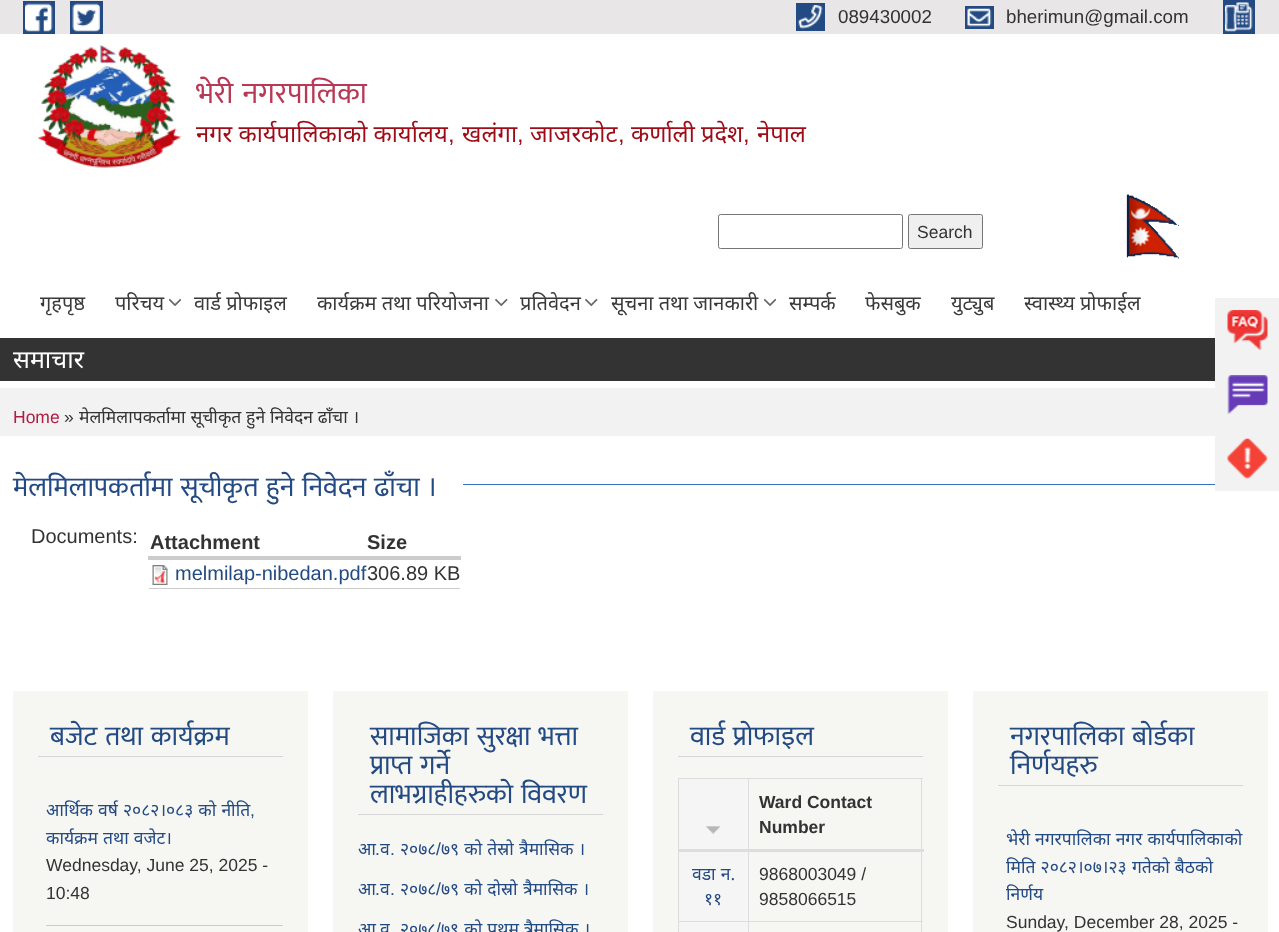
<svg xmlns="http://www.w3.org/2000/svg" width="1279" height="932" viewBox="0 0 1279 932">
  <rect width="100%" height="100%" fill="#fff"/>
  <path d="M0 0h1279v34H0z" fill="#e8e6e6"/>
  <path d="M23 1h32v33H23z" fill="#234a83"/>
  <path d="M70 1h33v33H70z" fill="#234a83"/>
  <image x="25" y="3" width="28" height="29" href="img/1.png"/>
  <image x="72" y="3" width="28" height="29" href="img/2.png"/>
  <path d="M1223 0h32v34H1223z" fill="#234a83"/>
  <path d="M796 3h29v28H796z" fill="#234a83"/>
  <image x="798" y="5" width="25" height="24" href="img/3.png"/>
  <path d="M965 6h29v23H965z" fill="#234a83"/>
  <image x="967" y="8" width="25" height="19" href="img/4.png"/>
  <image x="1225" y="2" width="28" height="30" href="img/5.png"/>
  <image x="37" y="44" width="145" height="124" href="img/6.png"/>
  <rect x="718.5" y="214.5" width="184" height="34" rx="2" fill="none" stroke="#767676"/>
  <rect x="908.5" y="214.5" width="74" height="34" rx="2" fill="#efefef" stroke="#767676"/>
  <image x="1126" y="194" width="53" height="65" href="img/7.png"/>
  <image x="169" y="298" width="12" height="8" href="img/8.png"/>
  <image x="495" y="298" width="13" height="9" href="img/9.png"/>
  <image x="585" y="298" width="13" height="9" href="img/9.png"/>
  <image x="764" y="298" width="12" height="8" href="img/8.png"/>
  <path d="M0 338h1215v43H0z" fill="#333"/>
  <path d="M0 388h1215v48H0z" fill="#f2f2f2"/>
  <path d="M463 484h752v1H463z" fill="#376fc2"/>
  <path d="M148 556h313v4H148z" fill="#ccc"/>
  <path d="M149 588h311v1H149z" fill="#ccc"/>
  <image x="152" y="565" width="16" height="20" href="img/10.png"/>
  <path d="M13 691h295v241H13z" fill="#f6f6f2"/>
  <path d="M38 756h245v1H38z" fill="#d6d6d6"/>
  <path d="M46 925h237v1H46z" fill="#ccc"/>
  <path d="M333 691h295v241H333z" fill="#f6f6f2"/>
  <path d="M358 814h245v1H358z" fill="#d6d6d6"/>
  <path d="M653 691h295v241H653z" fill="#f6f6f2"/>
  <path d="M678 756h245v1H678z" fill="#d6d6d6"/>
  <path d="M678 778h245v1H678z" fill="#ddd"/>
  <path d="M921 778h1v154H921z" fill="#ddd"/>
  <path d="M678 778h1v154H678z" fill="#ddd"/>
  <path d="M679 779h69v70H679z" fill="#f5f5f5"/>
  <image x="706" y="826" width="15" height="8" href="img/11.png"/>
  <path d="M679 852h69v80H679z" fill="#f5f5f5"/>
  <path d="M748 921h175v1H748z" fill="#ddd"/>
  <path d="M748 921h1v11H748z" fill="#ddd"/>
  <path d="M678 921h71v1H678z" fill="#ddd"/>
  <path d="M748 778h1v145H748z" fill="#ddd"/>
  <path d="M678 849h246v3H678z" fill="#ddd"/>
  <path d="M973 691h295v241H973z" fill="#f6f6f2"/>
  <path d="M998 785h245v1H998z" fill="#d6d6d6"/>
  <path d="M1215 298h64v193H1215z" fill="#f2f2f2"/>
  <image x="1227" y="310" width="41" height="40" href="img/12.png"/>
  <image x="1227" y="375" width="41" height="39" href="img/13.png"/>
  <image x="1227" y="438" width="41" height="41" href="img/14.png"/>
  <g font-family="Liberation Sans" font-size="18.75" fill="#333">
    <text x="838" y="23">089430002</text>
    <text x="1006" y="23">bherimun@gmail.com</text>
  </g>
  <text x="196" y="103" word-spacing="2" font-family="Mukta" font-size="30" fill="#b83955">भेरी नगरपालिका</text>
  <text x="196" y="142" font-family="Noto Sans" font-size="23.75" fill="#9e0c18">नगर कार्यपालिकाको कार्यालय</text>
  <text x="448" y="142" font-family="Liberation Sans" font-size="23.75" fill="#9e0c18">,</text>
  <text x="462" y="142" font-family="Noto Sans" font-size="23.75" fill="#9e0c18">खलंगा</text>
  <text x="517" y="142" font-family="Liberation Sans" font-size="23.75" fill="#9e0c18">,</text>
  <text x="530" y="142" font-family="Noto Sans" font-size="23.75" fill="#9e0c18">जाजरकोट</text>
  <text x="618" y="142" font-family="Liberation Sans" font-size="23.75" fill="#9e0c18">,</text>
  <text x="631" y="142" font-family="Noto Sans" font-size="23.75" fill="#9e0c18">कर्णाली प्रदेश</text>
  <text x="743" y="142" font-family="Liberation Sans" font-size="23.75" fill="#9e0c18">,</text>
  <text x="757" y="142" font-family="Noto Sans" font-size="23.75" fill="#9e0c18">नेपाल</text>
  <text x="917" y="238" font-family="Liberation Sans" font-size="17.5" fill="#333">Search</text>
  <g font-family="Noto Sans" font-size="20" fill="#393939">
    <text x="40" y="310">गृहपृष्ठ</text>
    <text x="115" y="310">परिचय</text>
    <text x="194" y="310">वार्ड प्रोफाइल</text>
    <text x="317" y="310">कार्यक्रम तथा परियोजना</text>
    <text x="520" y="310">प्रतिवेदन</text>
    <text x="611" y="310">सूचना तथा जानकारी</text>
    <text x="789" y="310">सम्पर्क</text>
    <text x="865" y="310">फेसबुक</text>
    <text x="951" y="310">युट्युब</text>
    <text x="1024" y="310">स्वास्थ्य प्रोफाईल</text>
  </g>
  <text x="13" y="368" font-family="Noto Sans" font-size="25" fill="#fff">समाचार</text>
  <text x="13" y="423" font-family="Liberation Sans" font-size="17.5" fill="#b21c42">Home</text>
  <text x="64" y="423" font-family="Liberation Sans" font-size="17.5" fill="#333">»</text>
  <text x="79" y="423" word-spacing="0.25" font-family="Noto Sans" font-size="17.5" fill="#333">मेलमिलापकर्तामा सूचीकृत हुने निवेदन ढाँचा ।</text>
  <text x="13" y="496" word-spacing="1.5" font-family="Mukta" font-size="27.5" fill="#234a83">मेलमिलापकर्तामा सूचीकृत हुने निवेदन ढाँचा ।</text>
  <text x="31" y="543" font-family="Liberation Sans" font-size="20" fill="#333">Documents:</text>
  <g font-family="Liberation Sans" font-size="20" font-weight="bold" fill="#333">
    <text x="150" y="549">Attachment</text>
    <text x="367" y="549">Size</text>
  </g>
  <text x="175" y="580" font-family="Liberation Sans" font-size="20" fill="#234a83">melmilap-nibedan.pdf</text>
  <text x="367" y="580" font-family="Liberation Sans" font-size="20" fill="#333">306.89 KB</text>
  <text x="50" y="745" word-spacing="1.5" font-family="Mukta" font-size="27.5" fill="#234a83">बजेट तथा कार्यक्रम</text>
  <text x="46" y="816" word-spacing="0.5" font-family="Noto Sans" font-size="17.5" fill="#234a83">आर्थिक वर्ष २०८२।०८३ को नीति</text>
  <text x="250" y="816" font-family="Liberation Sans" font-size="17.5" fill="#234a83">,</text>
  <text x="46" y="844" word-spacing="0.5" font-family="Noto Sans" font-size="17.5" fill="#234a83">कार्यक्रम तथा वजेट।</text>
  <g font-family="Liberation Sans" font-size="17.5" fill="#333">
    <text x="46" y="871">Wednesday, June 25, 2025 -</text>
    <text x="46" y="899">10:48</text>
  </g>
  <g font-family="Mukta" font-size="27.5" fill="#234a83">
    <text x="370" y="745" word-spacing="1.5">सामाजिका सुरक्षा भत्ता</text>
    <text x="370" y="774" word-spacing="1.5">प्राप्त गर्ने</text>
    <text x="370" y="803" word-spacing="1.5">लाभग्राहीहरुको विवरण</text>
  </g>
  <text x="358" y="855" font-family="Noto Sans" font-size="17.5" fill="#234a83">आ</text>
  <text x="375" y="855" font-family="Liberation Sans" font-size="17.5" fill="#234a83">.</text>
  <text x="380" y="855" font-family="Noto Sans" font-size="17.5" fill="#234a83">व</text>
  <text x="390" y="855" font-family="Liberation Sans" font-size="17.5" fill="#234a83">.</text>
  <text x="400" y="855" font-family="Noto Sans" font-size="17.5" fill="#234a83">२०७८</text>
  <text x="436" y="855" font-family="Liberation Sans" font-size="17.5" fill="#234a83">/</text>
  <g font-family="Noto Sans" font-size="17.5" fill="#234a83">
    <text x="441" y="855" word-spacing="0.5">७९ को तेस्रो</text>
    <text x="519" y="855" word-spacing="0.5">त्रैमासिक ।</text>
    <text x="358" y="895">आ</text>
  </g>
  <text x="375" y="895" font-family="Liberation Sans" font-size="17.5" fill="#234a83">.</text>
  <text x="380" y="895" font-family="Noto Sans" font-size="17.5" fill="#234a83">व</text>
  <text x="390" y="895" font-family="Liberation Sans" font-size="17.5" fill="#234a83">.</text>
  <text x="400" y="895" font-family="Noto Sans" font-size="17.5" fill="#234a83">२०७८</text>
  <text x="436" y="895" font-family="Liberation Sans" font-size="17.5" fill="#234a83">/</text>
  <g font-family="Noto Sans" font-size="17.5" fill="#234a83">
    <text x="441" y="895" word-spacing="0.5">७९ को दोस्रो</text>
    <text x="523" y="895" word-spacing="0.5">त्रैमासिक ।</text>
    <text x="358" y="935">आ</text>
    <text x="380" y="935">व</text>
    <text x="400" y="935">२०७८</text>
  </g>
  <text x="436" y="935" font-family="Liberation Sans" font-size="17.5" fill="#234a83">/</text>
  <text x="441" y="935" word-spacing="0.5" font-family="Noto Sans" font-size="17.5" fill="#234a83">७९ को प्रथम त्रैमासिक ।</text>
  <text x="690" y="745" word-spacing="1.5" font-family="Mukta" font-size="27.5" fill="#234a83">वार्ड प्रोफाइल</text>
  <g font-family="Liberation Sans" font-size="17.5" font-weight="bold" fill="#333">
    <text x="759" y="808">Ward Contact</text>
    <text x="759" y="833">Number</text>
  </g>
  <g font-family="Noto Sans" font-size="17.5" fill="#234a83">
    <text x="692" y="880" word-spacing="0.5">वडा न‍.</text>
    <text x="704" y="905">११</text>
  </g>
  <g font-family="Liberation Sans" font-size="17.5" fill="#333">
    <text x="759" y="880">9868003049 /</text>
    <text x="759" y="905">9858066515</text>
  </g>
  <g font-family="Mukta" font-size="27.5" fill="#234a83">
    <text x="1010" y="745" word-spacing="1.5">नगरपालिका बोर्डका</text>
    <text x="1010" y="774">निर्णयहरु</text>
  </g>
  <g font-family="Noto Sans" font-size="17.5" fill="#234a83">
    <text x="1006" y="845" word-spacing="0.5">भेरी नगरपालिका नगर कार्यपालिकाको</text>
    <text x="1006" y="873" word-spacing="0.5">मिति २०८२।०७।२३</text>
    <text x="1132" y="873" word-spacing="0.5">गतेको बैठको</text>
    <text x="1006" y="900">निर्णय</text>
  </g>
  <text x="1006" y="928" font-family="Liberation Sans" font-size="17.5" fill="#333">Sunday, December 28, 2025 -</text>
</svg>
